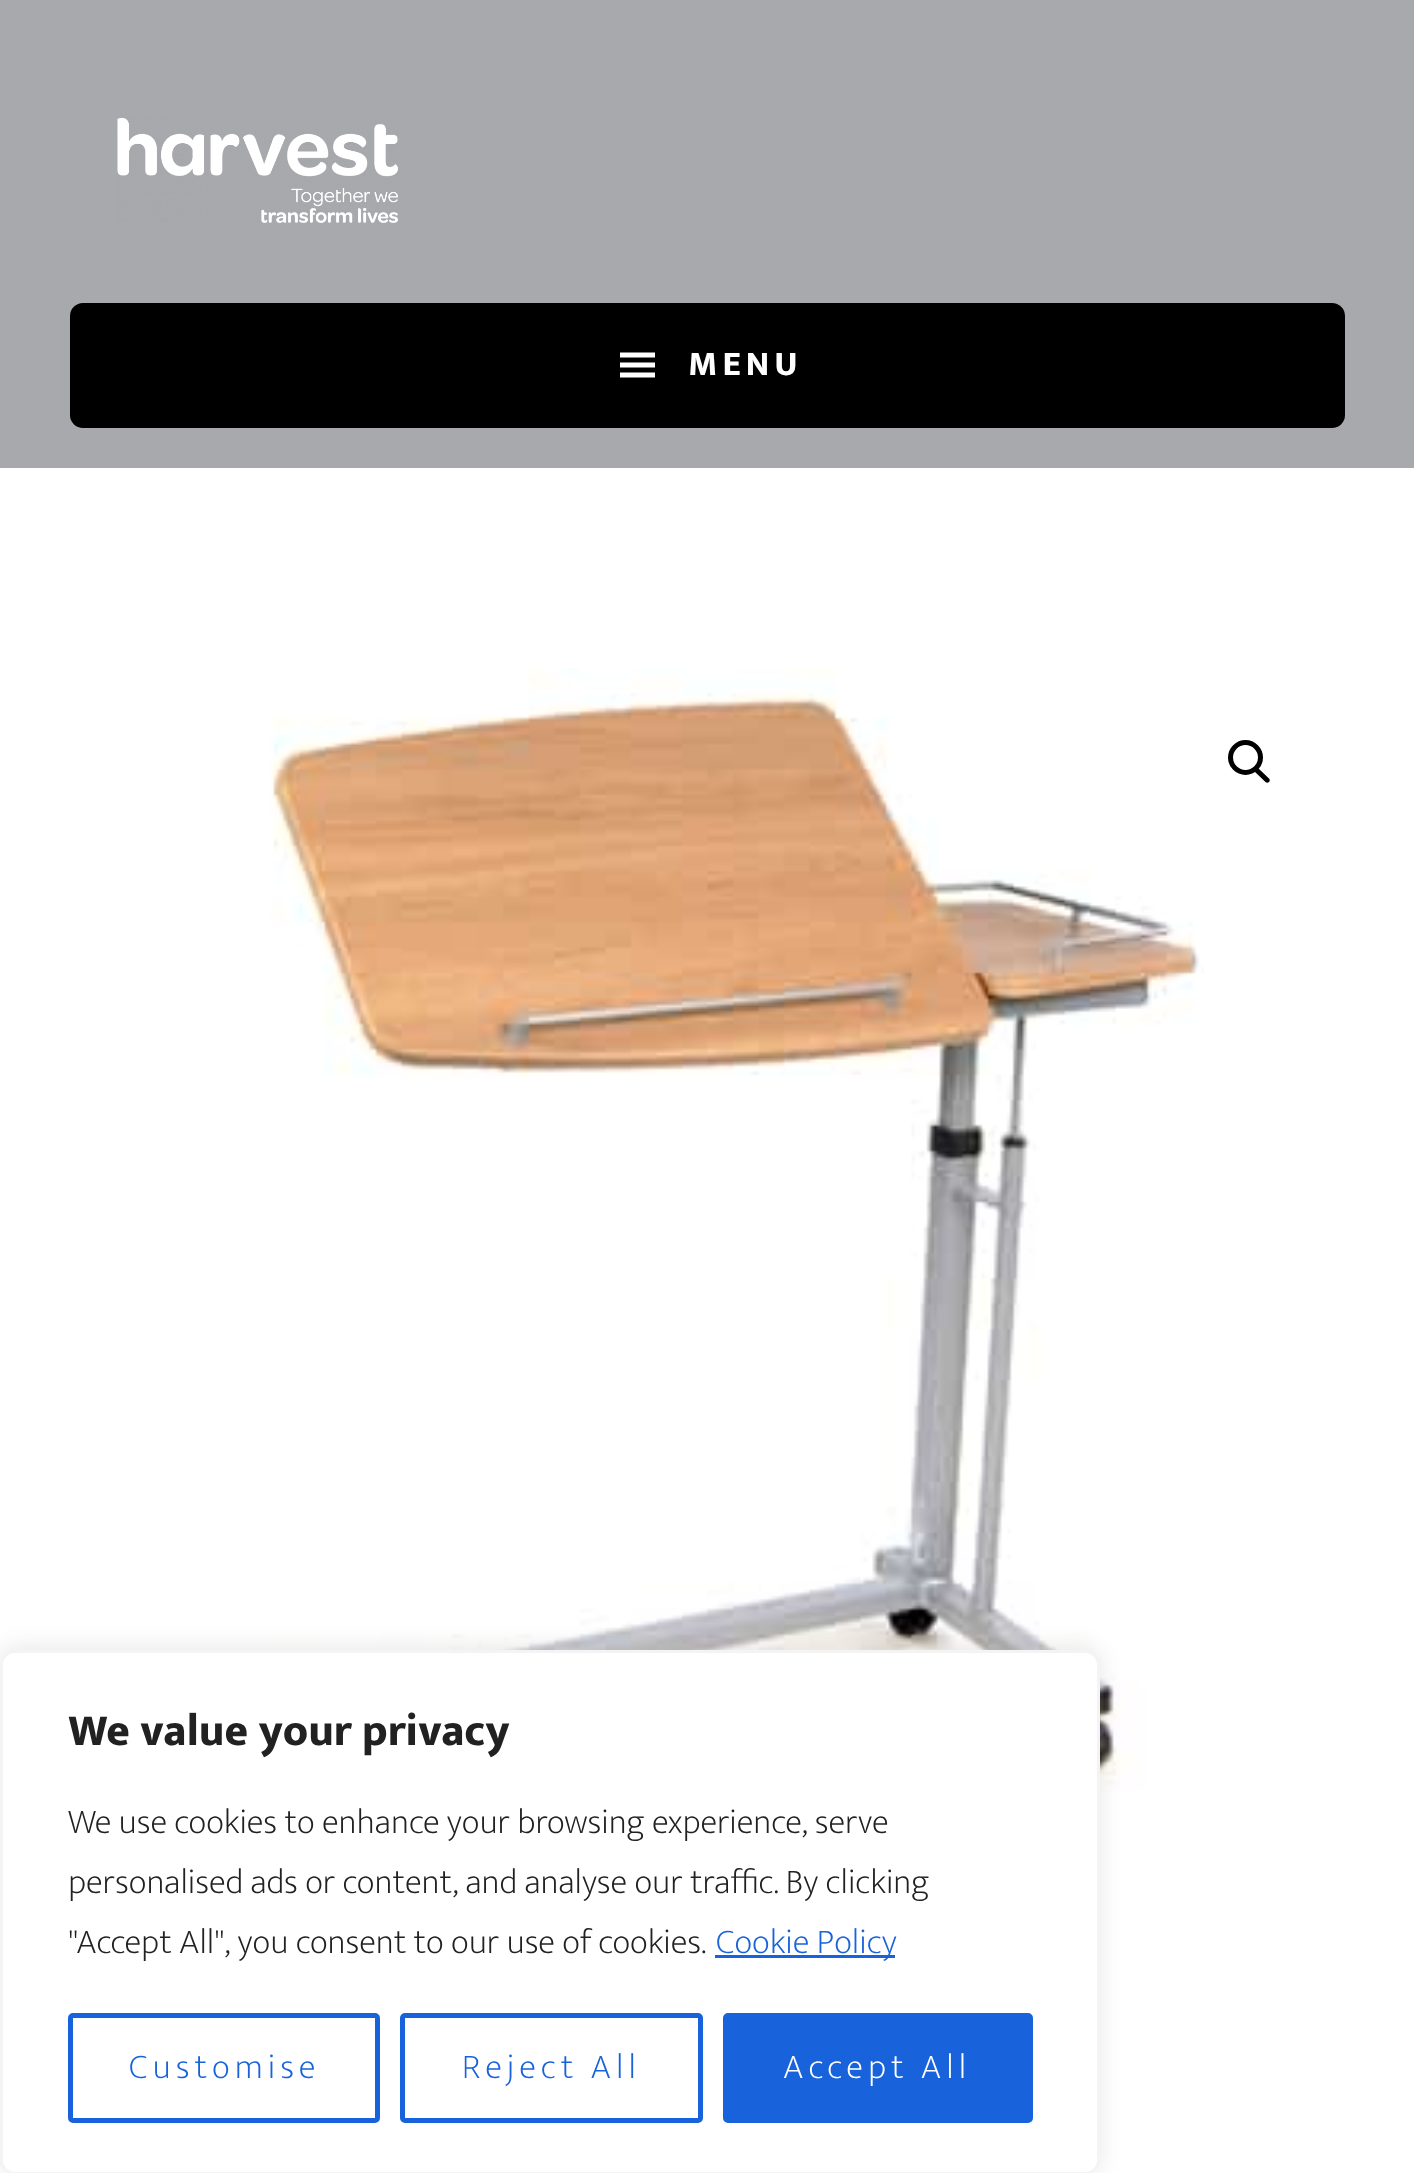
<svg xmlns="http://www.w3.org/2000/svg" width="1414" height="2173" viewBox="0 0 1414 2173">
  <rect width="100%" height="100%" fill="#fff"/>
  <path d="M0 0h1414v468H0z" fill="#a8a9ad"/>
  <image x="117" y="117" width="281" height="106" href="img/1.png"/>
  <rect x="70" y="303" width="1275" height="125" rx="13" fill="#000"/>
  <path d="M620 377.5H655V372.5H620ZM620 352.5V357.5H655V352.5ZM620 367.5H655V362.5H620Z" fill="#fff"/>
  <image x="231" y="668" width="973" height="1272" href="img/2.png"/>
  <circle cx="1245.5" cy="757.5" r="15" fill="none" stroke="#000" stroke-width="5"/>
  <path d="M1254.5 768C1255.5 767 1257 767 1258 768L1269 778.5C1270 779.5 1270 781 1269 782C1268 783 1266.5 783 1265.5 782L1254.5 771.5C1253.5 770.5 1253.5 769 1254.5 768Z" fill="#000"/>
  <rect y="1648" width="1100" height="525" rx="15" fill="#acabab4d" filter="blur(12.5px)"/>
  <rect x="1.5" y="1651.5" width="1097" height="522" rx="13.5" fill="#fff" stroke="#f4f4f4" stroke-width="3"/>
  <path d="M715 1955h180v3H715z" fill="#1863dc"/>
  <rect x="70.5" y="2015.5" width="307" height="105" rx="2.5" fill="none" stroke="#1863dc" stroke-width="5"/>
  <rect x="402.5" y="2015.5" width="298" height="105" rx="2.5" fill="none" stroke="#1863dc" stroke-width="5"/>
  <rect x="725.5" y="2015.5" width="305" height="105" rx="2.5" fill="#1863dc" stroke="#1863dc" stroke-width="5"/>
  <text x="688" y="375" font-family="Ek Mukta" font-size="35" font-weight="800" letter-spacing="5" fill="#fff">MENU</text>
  <text x="68" y="1745" font-family="Ek Mukta" font-size="45" font-weight="800" fill="#212121">We value your privacy</text>
  <g font-family="Ek Mukta" font-size="35" font-weight="200" fill="#212121">
    <text x="68" y="1833">We use cookies to enhance your browsing experience, serve</text>
    <text x="68" y="1893">personalised ads or content, and analyse our traffic. By clicking</text>
    <text x="68" y="1953">"Accept All", you consent to our use of cookies.</text>
  </g>
  <text x="716" y="1953" font-family="Ek Mukta" font-size="35" font-weight="200" fill="#1863dc">Cookie Policy</text>
  <g font-family="Ek Mukta" font-size="35" font-weight="200" letter-spacing="5" fill="#1863dc">
    <text x="129" y="2078">Customise</text>
    <text x="462" y="2078">Reject All</text>
  </g>
  <text x="783" y="2078" font-family="Ek Mukta" font-size="35" font-weight="200" letter-spacing="5" fill="#fff">Accept All</text>
</svg>
